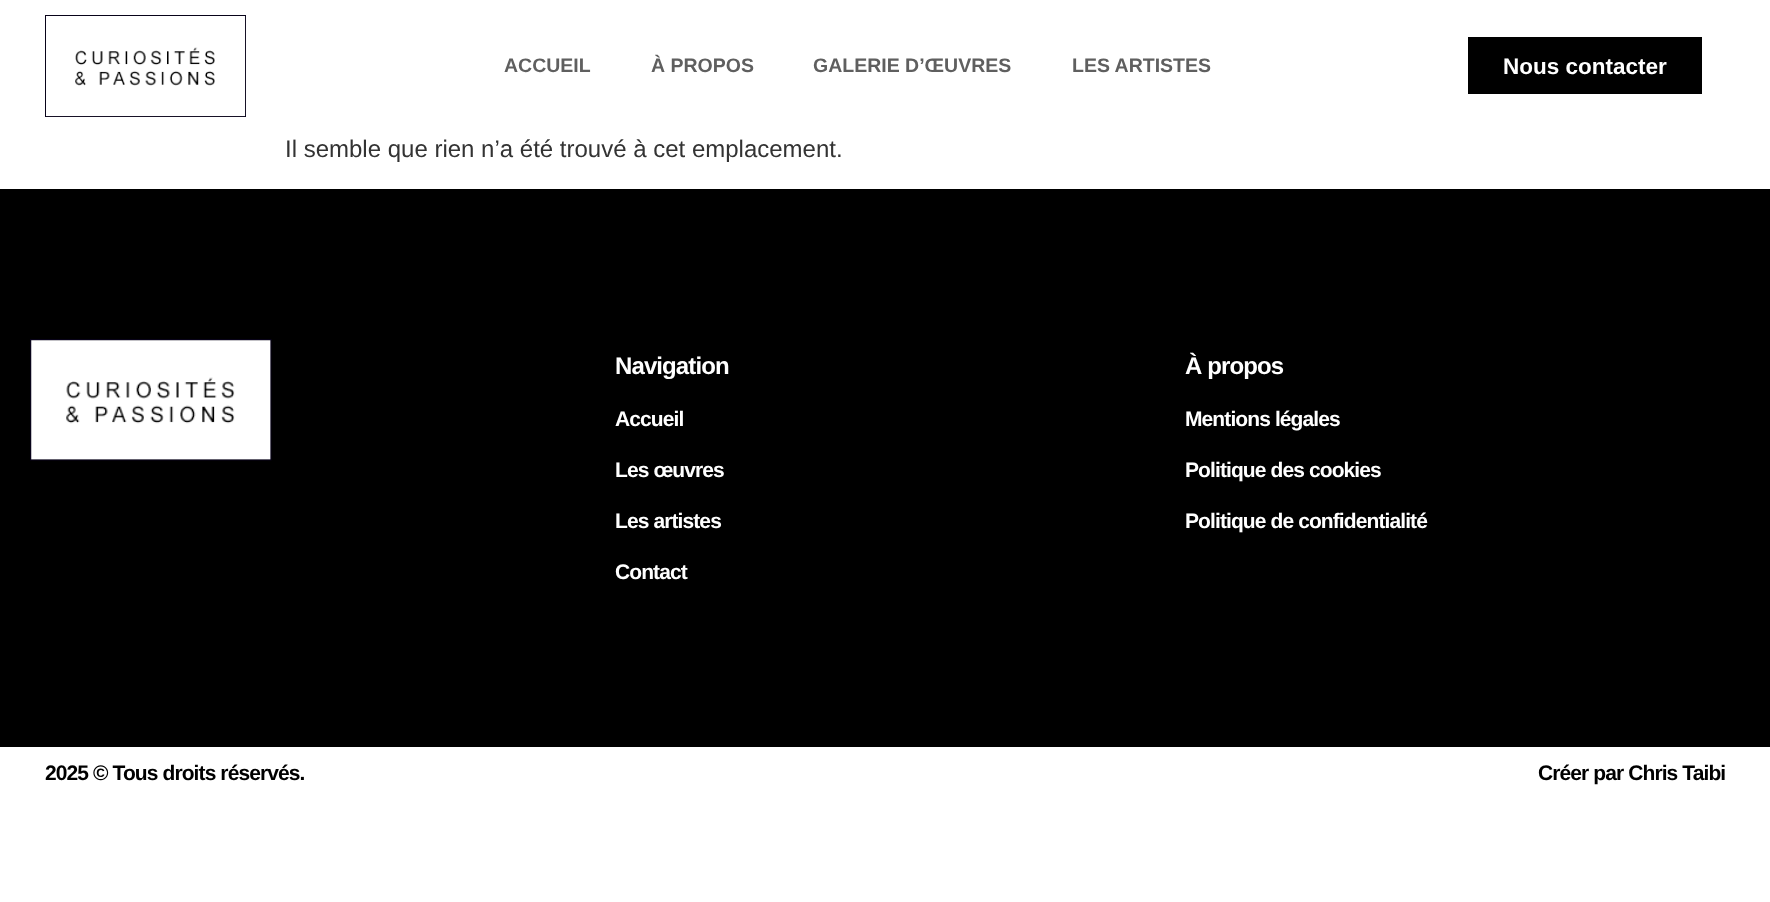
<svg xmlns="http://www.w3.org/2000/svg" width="1770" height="902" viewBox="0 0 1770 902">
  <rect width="100%" height="100%" fill="#fff"/>
  <image x="45" y="15" width="201" height="102" href="img/1.png"/>
  <path d="M1468 37h234v57H1468z" fill="#000"/>
  <path d="M0 189h1770v558H0z" fill="#000"/>
  <image x="30" y="339" width="242" height="122" href="img/2.png"/>
  <g font-family="Liberation Sans" font-size="19.5" font-weight="bold" fill="#5f5f5f">
    <text x="504" y="72">ACCUEIL</text>
    <text x="651" y="72">À PROPOS</text>
    <text x="813" y="72">GALERIE D’ŒUVRES</text>
    <text x="1072" y="72">LES ARTISTES</text>
  </g>
  <text x="1503" y="74" font-family="Liberation Sans" font-size="22.5" font-weight="bold" fill="#fff">Nous contacter</text>
  <text x="285" y="157" font-family="Liberation Sans" font-size="24" fill="#333">Il semble que rien n’a été trouvé à cet emplacement.</text>
  <text x="615" y="374" font-family="Liberation Sans" font-size="24" font-weight="bold" letter-spacing="-0.9" fill="#fff">Navigation</text>
  <g font-family="Liberation Sans" font-size="21" font-weight="bold" letter-spacing="-0.9" fill="#fff">
    <text x="615" y="426">Accueil</text>
    <text x="615" y="477">Les œuvres</text>
    <text x="615" y="528">Les artistes</text>
    <text x="615" y="579">Contact</text>
  </g>
  <text x="1185" y="374" font-family="Liberation Sans" font-size="24" font-weight="bold" letter-spacing="-0.9" fill="#fff">À propos</text>
  <g font-family="Liberation Sans" font-size="21" font-weight="bold" letter-spacing="-0.9" fill="#fff">
    <text x="1185" y="426">Mentions légales</text>
    <text x="1185" y="477">Politique des cookies</text>
    <text x="1185" y="528">Politique de confidentialité</text>
  </g>
  <g font-family="Liberation Sans" font-size="21" font-weight="bold" letter-spacing="-0.9" fill="#000">
    <text x="45" y="780">2025 © Tous droits réservés.</text>
    <text x="1538" y="780">Créer par Chris Taibi</text>
  </g>
</svg>
